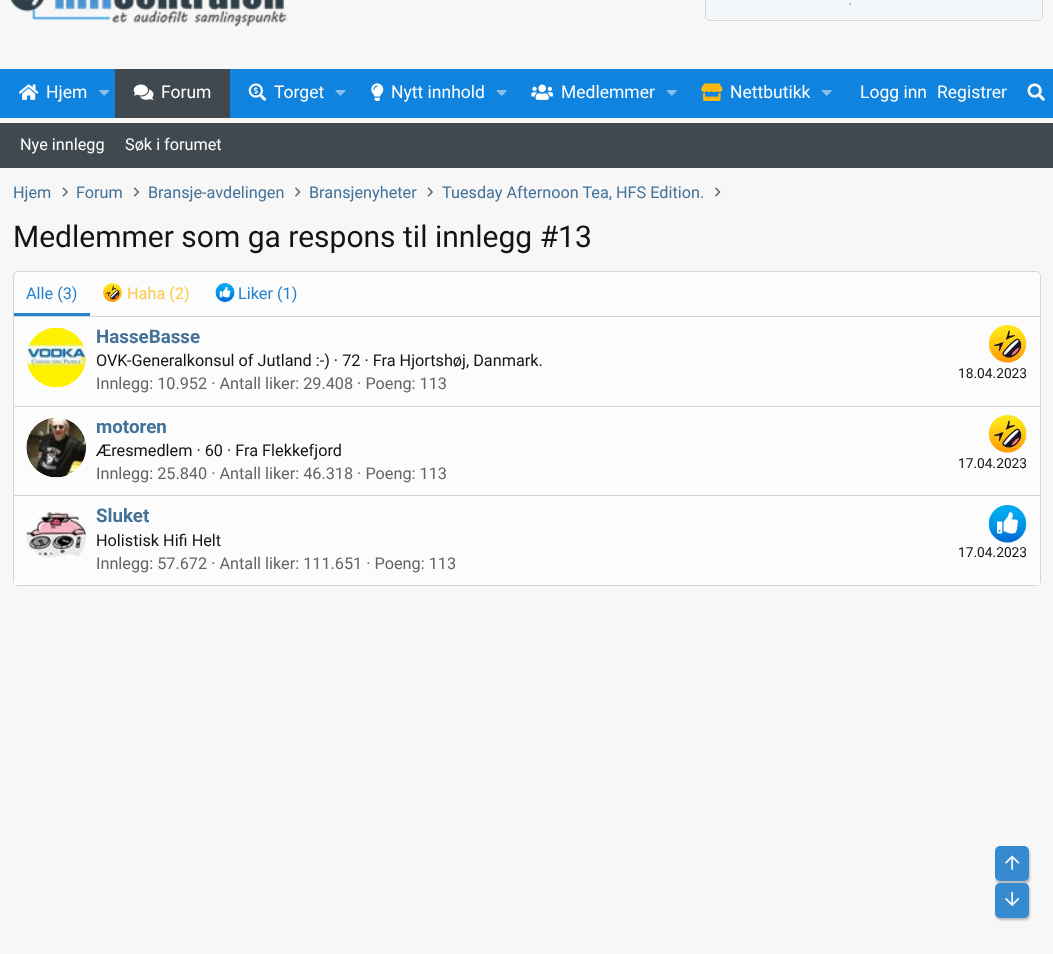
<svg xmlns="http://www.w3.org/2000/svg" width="1053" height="954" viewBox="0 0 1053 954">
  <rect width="100%" height="100%" fill="#f7f7f7"/>
  <image x="10" y="0" width="277" height="27" href="img/1.png"/>
  <rect x="705.5" y="-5.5" width="337" height="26" rx="4.5" fill="#f3f7fa" stroke="#d5d5d5"/>
  <path d="M0 69h1053v49H0z" fill="#1083df"/>
  <image x="18" y="84" width="21" height="16" href="img/2.png"/>
  <image x="99" y="90" width="11" height="6" href="img/3.png"/>
  <path d="M115 69h115v49H115z" fill="#3f494f"/>
  <image x="133" y="84" width="21" height="16" href="img/4.png"/>
  <image x="248" y="83" width="19" height="18" href="img/5.png"/>
  <image x="335" y="90" width="11" height="6" href="img/6.png"/>
  <image x="371" y="83" width="13" height="18" href="img/7.png"/>
  <image x="496" y="90" width="11" height="6" href="img/8.png"/>
  <image x="531" y="84" width="23" height="16" href="img/9.png"/>
  <image x="666" y="90" width="11" height="6" href="img/8.png"/>
  <image x="701" y="83" width="22" height="18" href="img/10.png"/>
  <image x="821" y="90" width="11" height="6" href="img/8.png"/>
  <image x="1027" y="83" width="18" height="18" href="img/11.png"/>
  <path d="M0 123h1053v45H0z" fill="#3f494f"/>
  <image x="62" y="187" width="6" height="10" href="img/12.png"/>
  <image x="133" y="187" width="7" height="10" href="img/13.png"/>
  <image x="295" y="187" width="6" height="10" href="img/14.png"/>
  <image x="427" y="187" width="6" height="10" href="img/12.png"/>
  <image x="715" y="187" width="6" height="10" href="img/14.png"/>
  <rect x="13.5" y="271.5" width="1027" height="314" rx="4.5" fill="#fcfcfc" stroke="#d5d5d5"/>
  <path d="M14 316h1026v1H14z" fill="#d5d5d5"/>
  <path d="M14 313h76v3H14z" fill="#2482cf"/>
  <image x="103" y="283" width="19" height="19" href="img/15.png"/>
  <image x="215" y="283" width="20" height="19" href="img/16.png"/>
  <image x="26" y="327" width="60" height="61" href="img/17.png"/>
  <image x="988" y="324" width="39" height="39" href="img/18.png"/>
  <path d="M14 406h1026v1H14z" fill="#d5d5d5"/>
  <image x="26" y="418" width="60" height="60" href="img/19.png"/>
  <image x="988" y="414" width="39" height="39" href="img/20.png"/>
  <path d="M14 581h1026v4H14z" fill="#fefefe"/>
  <path d="M14 495h1026v1H14z" fill="#d5d5d5"/>
  <image x="26" y="508" width="60" height="50" href="img/21.png"/>
  <image x="988" y="504" width="39" height="39" href="img/22.png"/>
  <rect x="996" y="849" width="34" height="35" rx="5" fill="#00000040" filter="blur(1px)"/>
  <rect x="995" y="846" width="34" height="35" rx="5" fill="#368bd0"/>
  <image x="1005" y="855" width="15" height="15" href="img/23.png"/>
  <rect x="996" y="885" width="34" height="35" rx="5" fill="#00000040" filter="blur(1px)"/>
  <rect x="995" y="883" width="34" height="35" rx="5" fill="#368bd0"/>
  <image x="1005" y="891" width="15" height="15" href="img/24.png"/>
  <text x="848" y="5" font-family="Roboto" font-size="17.5" fill="#9a9c9e">.</text>
  <g font-family="Roboto" font-size="17.5" fill="#fefefe">
    <text x="46" y="98">Hjem</text>
    <text x="161" y="98">Forum</text>
    <text x="274" y="98">Torget</text>
    <text x="391" y="98">Nytt innhold</text>
    <text x="561" y="98">Medlemmer</text>
    <text x="730" y="98">Nettbutikk</text>
    <text x="860" y="98">Logg inn</text>
    <text x="937" y="98">Registrer</text>
  </g>
  <g font-family="Roboto" font-size="16.25" fill="#fefefe">
    <text x="20" y="150">Nye innlegg</text>
    <text x="125" y="150">Søk i forumet</text>
  </g>
  <g font-family="Roboto" font-size="16.25" fill="#437197">
    <text x="13" y="198">Hjem</text>
    <text x="76" y="198">Forum</text>
    <text x="148" y="198">Bransje-avdelingen</text>
    <text x="309" y="198">Bransjenyheter</text>
    <text x="442" y="198">Tuesday Afternoon Tea, HFS Edition.</text>
  </g>
  <text x="13" y="247" font-family="Roboto" font-size="30" fill="#141414">Medlemmer som ga respons til innlegg #13</text>
  <text x="26" y="299" font-family="Roboto" font-size="16.25" fill="#2482cf">Alle (3)</text>
  <text x="127" y="299" font-family="Roboto" font-size="16.25" fill="#fdca47">Haha (2)</text>
  <text x="238" y="299" font-family="Roboto" font-size="16.25" fill="#2482cf">Liker (1)</text>
  <text x="96" y="343" font-family="Roboto" font-size="18.75" font-weight="bold" fill="#437197">HasseBasse</text>
  <text x="96" y="366" font-family="Roboto" font-size="16.25" fill="#141414">OVK-Generalkonsul of Jutland :-) · 72 · Fra Hjortshøj, Danmark.</text>
  <text x="958" y="378" font-family="Roboto" font-size="13.75" fill="#141414">18.04.2023</text>
  <text x="96" y="389" font-family="Roboto" font-size="16.25" fill="#646464">Innlegg: 10.952 · Antall liker: 29.408 · Poeng: 113</text>
  <text x="96" y="433" font-family="Roboto" font-size="18.75" font-weight="bold" fill="#437197">motoren</text>
  <text x="96" y="456" font-family="Roboto" font-size="16.25" fill="#141414">Æresmedlem · 60 · Fra Flekkefjord</text>
  <text x="958" y="468" font-family="Roboto" font-size="13.75" fill="#141414">17.04.2023</text>
  <text x="96" y="479" font-family="Roboto" font-size="16.25" fill="#646464">Innlegg: 25.840 · Antall liker: 46.318 · Poeng: 113</text>
  <text x="96" y="522" font-family="Roboto" font-size="18.75" font-weight="bold" fill="#437197">Sluket</text>
  <text x="96" y="546" font-family="Roboto" font-size="16.25" fill="#141414">Holistisk Hifi Helt</text>
  <text x="958" y="557" font-family="Roboto" font-size="13.75" fill="#141414">17.04.2023</text>
  <text x="96" y="569" font-family="Roboto" font-size="16.25" fill="#646464">Innlegg: 57.672 · Antall liker: 111.651 · Poeng: 113</text>
</svg>
